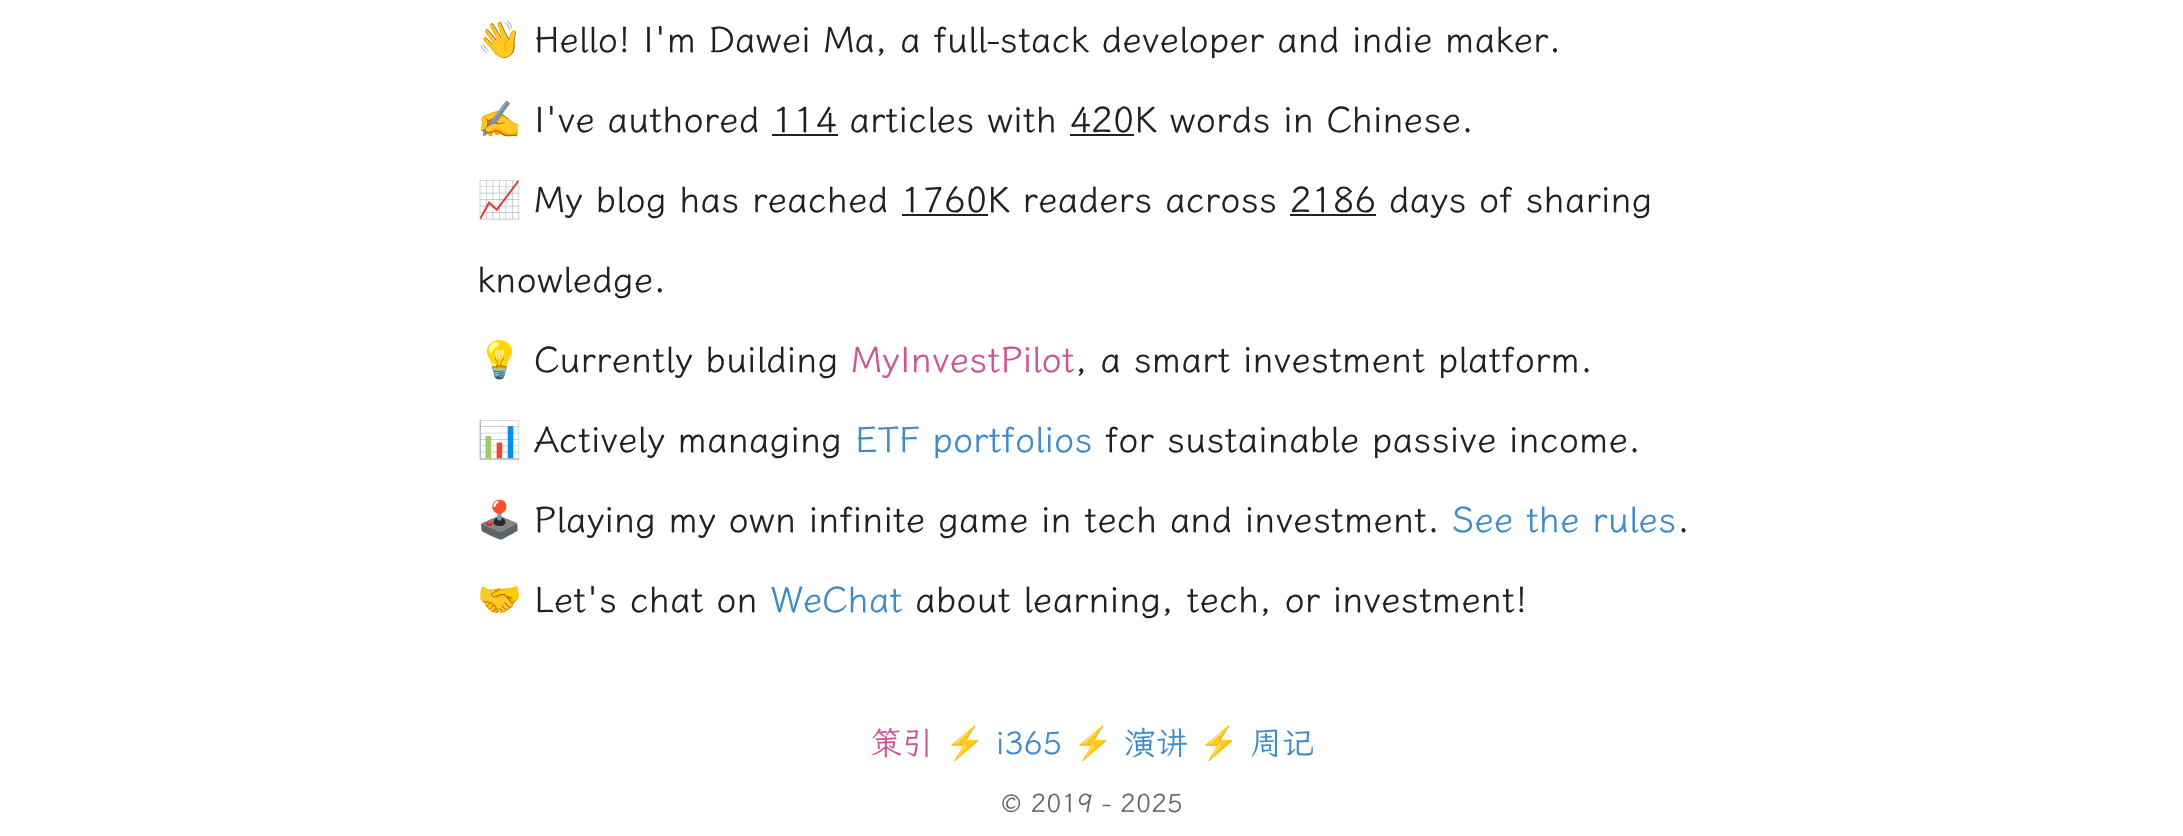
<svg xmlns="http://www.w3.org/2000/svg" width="2183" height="836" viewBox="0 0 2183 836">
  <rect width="100%" height="100%" fill="#fff"/>
  <path d="M772 134h66v2H772z" fill="#212121"/>
  <path d="M1070 134h64v2H1070z" fill="#212121"/>
  <path d="M902 214h86v2H902z" fill="#212121"/>
  <path d="M1290 214h86v2H1290z" fill="#212121"/>
  <text x="477" y="52" font-family="Noto Color Emoji" font-size="36" fill="#212121">👋</text>
  <text x="534" y="52" font-family="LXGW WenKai" font-size="36" fill="#212121">Hello! I'm Dawei Ma, a full-stack developer and indie maker.</text>
  <text x="477" y="132" font-family="Noto Color Emoji" font-size="36" fill="#212121">✍️</text>
  <text x="534" y="132" font-family="LXGW WenKai" font-size="36" fill="#212121">I've authored 114 articles with 420K words in Chinese.</text>
  <text x="477" y="212" font-family="Noto Color Emoji" font-size="36" fill="#212121">📈</text>
  <g font-family="LXGW WenKai" font-size="36" fill="#212121">
    <text x="534" y="212">My blog has reached 1760K readers across 2186 days of sharing</text>
    <text x="477" y="292">knowledge.</text>
  </g>
  <text x="477" y="372" font-family="Noto Color Emoji" font-size="36" fill="#212121">💡</text>
  <text x="534" y="372" font-family="LXGW WenKai" font-size="36" fill="#212121">Currently building</text>
  <text x="851" y="372" font-family="LXGW WenKai" font-size="36" fill="#cc5595">MyInvestPilot</text>
  <text x="1075" y="372" font-family="LXGW WenKai" font-size="36" fill="#212121">, a smart investment platform.</text>
  <text x="477" y="452" font-family="Noto Color Emoji" font-size="36" fill="#212121">📊</text>
  <text x="534" y="452" font-family="LXGW WenKai" font-size="36" fill="#212121">Actively managing</text>
  <text x="855" y="452" font-family="LXGW WenKai" font-size="36" fill="#428bca">ETF portfolios</text>
  <text x="1105" y="452" font-family="LXGW WenKai" font-size="36" fill="#212121">for sustainable passive income.</text>
  <text x="477" y="532" font-family="Noto Color Emoji" font-size="36" fill="#212121">🕹️</text>
  <text x="534" y="532" font-family="LXGW WenKai" font-size="36" fill="#212121">Playing my own infinite game in tech and investment.</text>
  <text x="1452" y="532" font-family="LXGW WenKai" font-size="36" fill="#428bca">See the rules</text>
  <text x="1677" y="532" font-family="LXGW WenKai" font-size="36" fill="#212121">.</text>
  <text x="477" y="612" font-family="Noto Color Emoji" font-size="36" fill="#212121">🤝</text>
  <text x="534" y="612" font-family="LXGW WenKai" font-size="36" fill="#212121">Let's chat on</text>
  <text x="771" y="612" font-family="LXGW WenKai" font-size="36" fill="#428bca">WeChat</text>
  <text x="915" y="612" font-family="LXGW WenKai" font-size="36" fill="#212121">about learning, tech, or investment!</text>
  <text x="870" y="754" font-family="LXGW WenKai" font-size="32" fill="#cc5595">策引</text>
  <text x="945" y="754" font-family="Noto Color Emoji" font-size="32" fill="#212121">⚡️</text>
  <text x="996" y="754" font-family="LXGW WenKai" font-size="32" fill="#428bca">i365</text>
  <text x="1073" y="754" font-family="Noto Color Emoji" font-size="32" fill="#212121">⚡️</text>
  <text x="1124" y="754" font-family="LXGW WenKai" font-size="32" fill="#428bca">演讲</text>
  <text x="1199" y="754" font-family="Noto Color Emoji" font-size="32" fill="#212121">⚡️</text>
  <text x="1250" y="754" font-family="LXGW WenKai" font-size="32" fill="#428bca">周记</text>
  <text x="1001" y="812" font-family="LXGW WenKai" font-size="26" fill="#666">© 2019 - 2025</text>
</svg>
